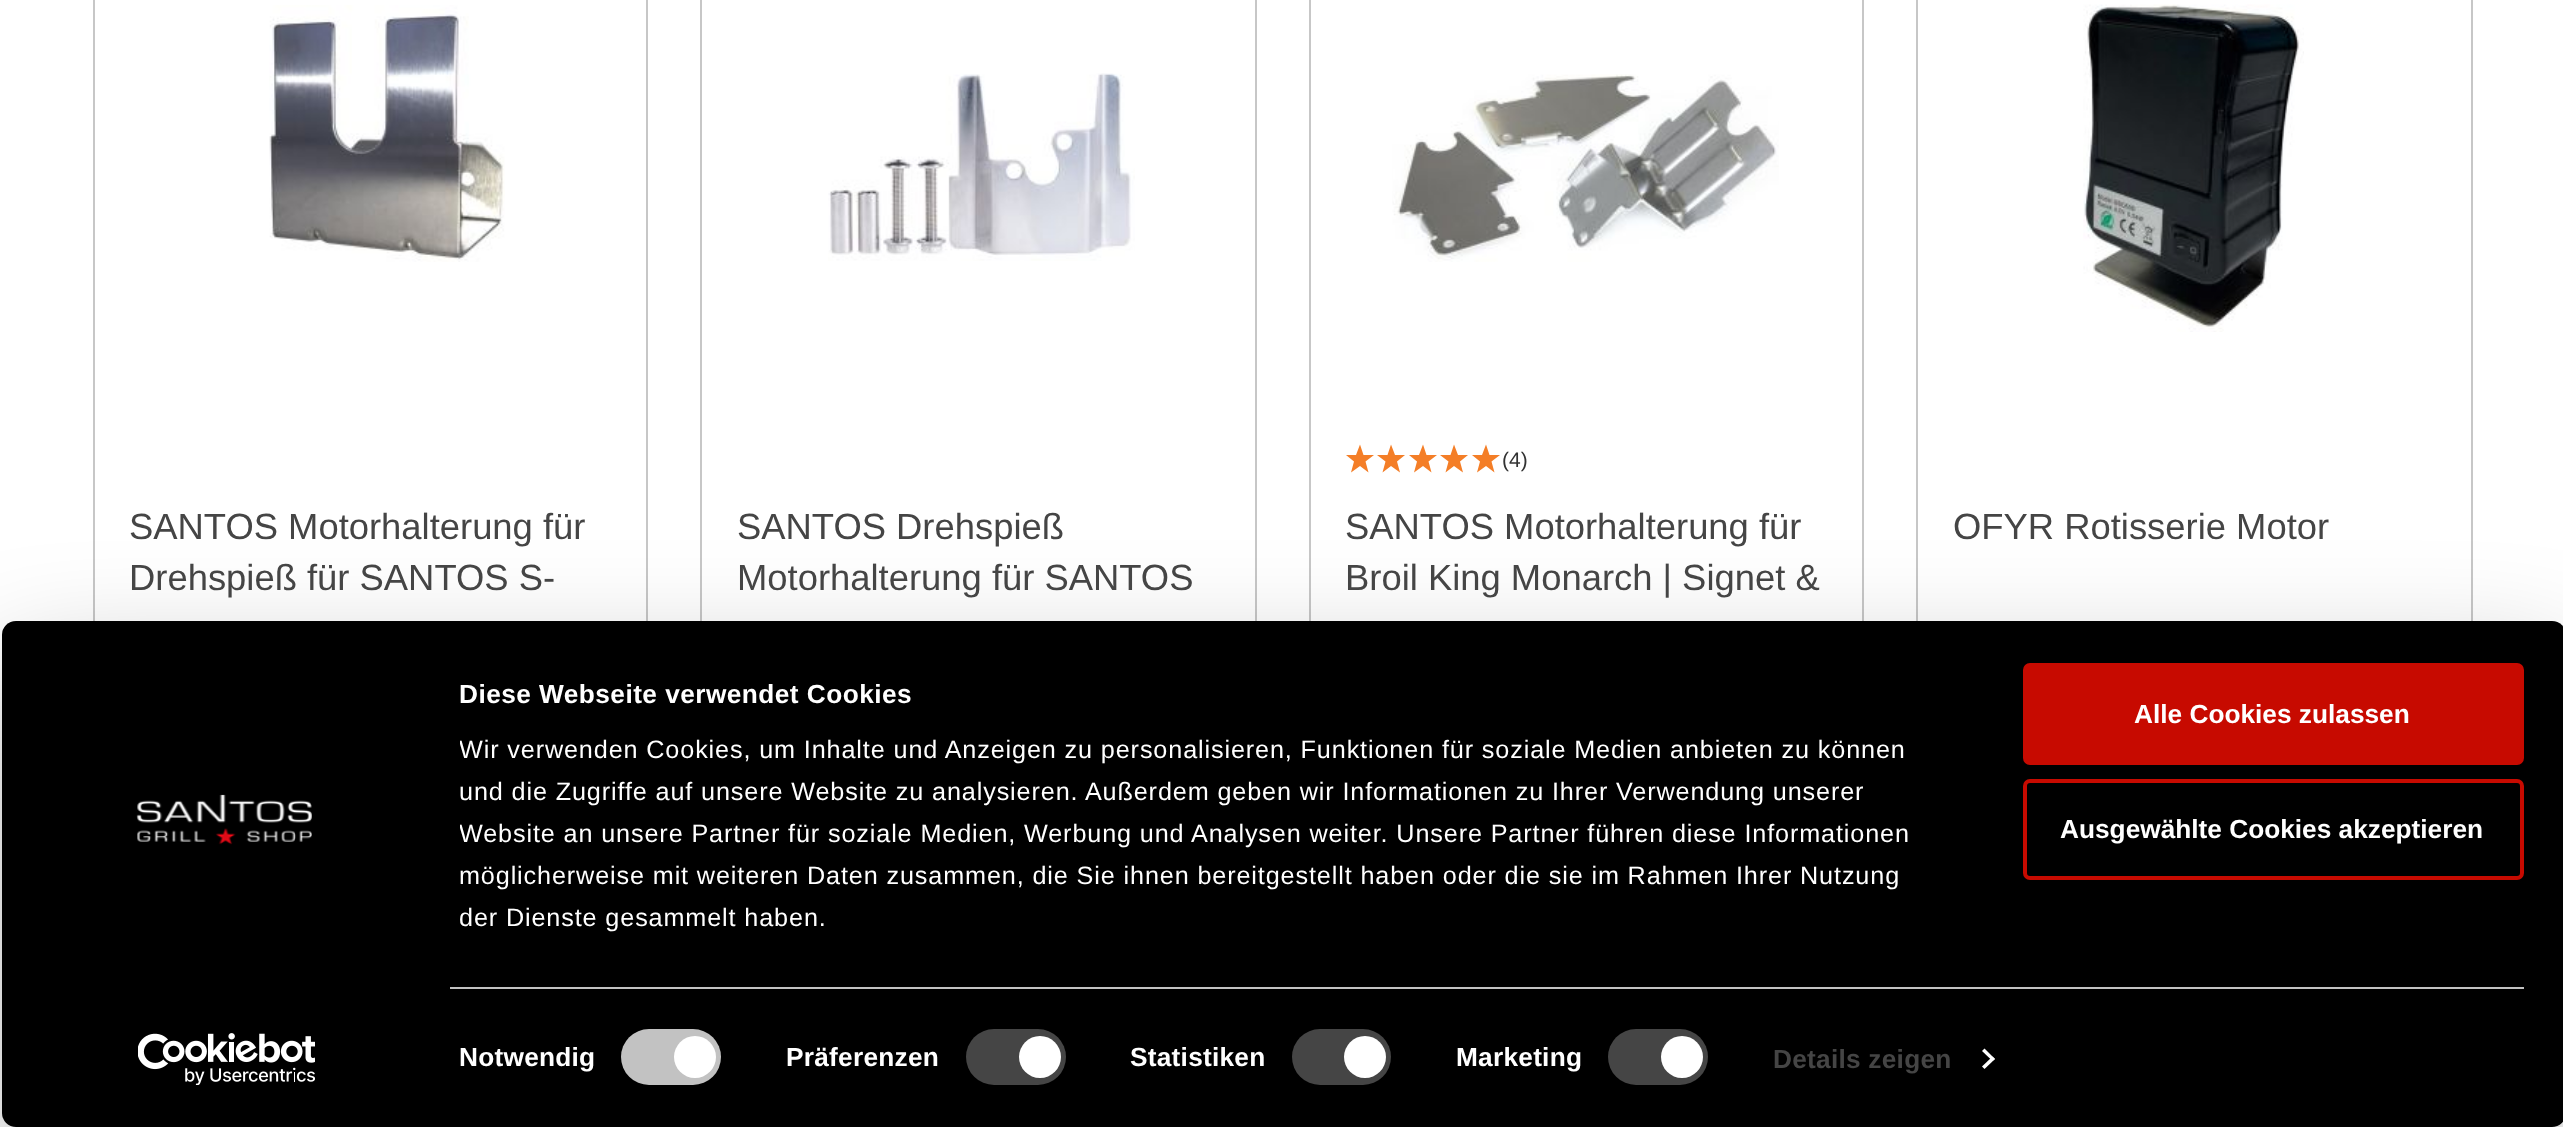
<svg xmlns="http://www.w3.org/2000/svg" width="2563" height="1127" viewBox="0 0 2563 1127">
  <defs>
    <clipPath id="clip1"><path d="M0 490H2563V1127H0ZM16 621H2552C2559.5 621 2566 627.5 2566 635V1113C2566 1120.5 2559.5 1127 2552 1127H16C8.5 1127 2 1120.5 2 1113V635C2 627.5 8.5 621 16 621Z" clip-rule="evenodd"/></clipPath>
    <clipPath id="clip2"><path d="M460 674h1512v264H460z"/></clipPath>
  </defs>
  <rect width="100%" height="100%" fill="#fff"/>
  <path d="M94 -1h553v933H94z" fill="none" stroke="#c7c7c7" stroke-width="2"/>
  <image x="269" y="5" width="236" height="257" href="img/1.png"/>
  <path d="M701 -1h555v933H701z" fill="none" stroke="#c7c7c7" stroke-width="2"/>
  <image x="828" y="73" width="307" height="188" href="img/2.png"/>
  <path d="M1310 -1h553v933H1310z" fill="none" stroke="#c7c7c7" stroke-width="2"/>
  <image x="1392" y="74" width="387" height="188" href="img/3.png"/>
  <path d="M1374 455L1365.5 461.5L1368.5 472.5L1360 466L1351 472.5L1354 461.5L1346 455H1356L1360 444.5L1363.5 455ZM1405 455L1397 461.5L1400 472.5L1391 466L1382.5 472.5L1385.5 461.5L1377 455H1387.5L1391 444.5L1395 455Z" fill="#f47e27"/>
  <path d="M1437 455L1428.5 461.5L1431.5 472.5L1423 466L1414 472.5L1417 461.5L1409 455H1419L1423 444.5L1426.5 455ZM1468 455L1460 461.5L1463 472.5L1454 466L1445.5 472.5L1448.5 461.5L1440 455H1450.5L1454 444.5L1458 455Z" fill="#f47e27"/>
  <path d="M1500 455L1491.5 461.5L1494.5 472.5L1486 466L1477 472.5L1480 461.5L1472 455H1482L1486 444.5L1489.5 455Z" fill="#f47e27"/>
  <path d="M1917 -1h555v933H1917z" fill="none" stroke="#c7c7c7" stroke-width="2"/>
  <image x="2083" y="4" width="221" height="328" href="img/4.png"/>
  <g clip-path="url(#clip1)">
    <rect x="2" y="674" width="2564" height="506" rx="14" fill="#0000004d" filter="blur(61px)"/>
  </g>
  <rect x="2" y="621" width="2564" height="506" rx="14" fill="#000"/>
  <path d="M450 987h2074v2H450z" fill="#c2c2c2"/>
  <rect x="621" y="1029" width="100" height="56" rx="28" fill="#c2c2c2"/>
  <circle cx="695" cy="1057" r="21" fill="#fff"/>
  <rect x="966" y="1029" width="100" height="56" rx="28" fill="#454545"/>
  <circle cx="1040" cy="1057" r="21" fill="#fff"/>
  <rect x="1292" y="1029" width="99" height="56" rx="28" fill="#454545"/>
  <circle cx="1365" cy="1057" r="21" fill="#fff"/>
  <rect x="1608" y="1029" width="100" height="56" rx="28" fill="#454545"/>
  <circle cx="1682" cy="1057" r="21" fill="#fff"/>
  <path d="M1984.5 1048.5L1995 1059L1992.5 1061L1982 1051Z" fill="#fff"/>
  <path d="M1992.5 1056.5L1995 1059L1984.5 1069L1982 1066.5Z" fill="#fff"/>
  <rect x="2025" y="665" width="497" height="98" rx="5" fill="#c70a00" stroke="#c70a00" stroke-width="4"/>
  <rect x="2025" y="781" width="497" height="97" rx="5" fill="none" stroke="#c70a00" stroke-width="4"/>
  <image x="136" y="794" width="176" height="51" href="img/5.png"/>
  <image x="138" y="1033" width="177" height="52" href="img/6.png"/>
  <g font-family="Liberation Sans" font-size="36.4" fill="#454545">
    <text x="129" y="539">SANTOS Motorhalterung für</text>
    <text x="129" y="590">Drehspieß für SANTOS S-</text>
    <text x="737" y="539">SANTOS Drehspieß</text>
    <text x="737" y="590">Motorhalterung für SANTOS</text>
  </g>
  <text x="1502" y="467" font-family="Liberation Sans" font-size="21" fill="#333">(4)</text>
  <g font-family="Liberation Sans" font-size="36.4" fill="#454545">
    <text x="1345" y="539">SANTOS Motorhalterung für</text>
    <text x="1345" y="590">Broil King Monarch | Signet &amp;</text>
    <text x="1953" y="539">OFYR Rotisserie Motor</text>
  </g>
  <text x="459" y="703" font-family="Liberation Sans" font-size="26.25" font-weight="bold" letter-spacing="0.45" fill="#fff">Diese Webseite verwendet Cookies</text>
  <g clip-path="url(#clip2)">
    <text x="459" y="758" font-family="Liberation Sans" font-size="25.2" letter-spacing="0.88" fill="#fff">Wir verwenden Cookies, um Inhalte und Anzeigen zu personalisieren, Funktionen für soziale Medien anbieten zu können</text>
  </g>
  <text x="459" y="800" font-family="Liberation Sans" font-size="25.2" letter-spacing="0.88" fill="#fff">und die Zugriffe auf unsere Website zu analysieren. Außerdem geben wir Informationen zu Ihrer Verwendung unserer</text>
  <g clip-path="url(#clip2)">
    <text x="459" y="842" font-family="Liberation Sans" font-size="25.2" letter-spacing="0.88" fill="#fff">Website an unsere Partner für soziale Medien, Werbung und Analysen weiter. Unsere Partner führen diese Informationen</text>
  </g>
  <text x="459" y="884" font-family="Liberation Sans" font-size="25.2" letter-spacing="0.88" fill="#fff">möglicherweise mit weiteren Daten zusammen, die Sie ihnen bereitgestellt haben oder die sie im Rahmen Ihrer Nutzung</text>
  <g clip-path="url(#clip2)">
    <text x="459" y="926" font-family="Liberation Sans" font-size="25.2" letter-spacing="0.88" fill="#fff">der Dienste gesammelt haben.</text>
  </g>
  <g font-family="Liberation Sans" font-size="26.25" font-weight="bold" letter-spacing="0.25" fill="#fff">
    <text x="459" y="1066">Notwendig</text>
    <text x="786" y="1066">Präferenzen</text>
    <text x="1130" y="1066">Statistiken</text>
    <text x="1456" y="1066">Marketing</text>
  </g>
  <text x="1773" y="1068" font-family="Liberation Sans" font-size="26.25" font-weight="bold" letter-spacing="0.25" fill="#454545">Details zeigen</text>
  <g font-family="Liberation Sans" font-size="26.25" font-weight="bold" fill="#fff">
    <text x="2134" y="723">Alle Cookies zulassen</text>
    <text x="2060" y="838">Ausgewählte Cookies akzeptieren</text>
  </g>
</svg>
